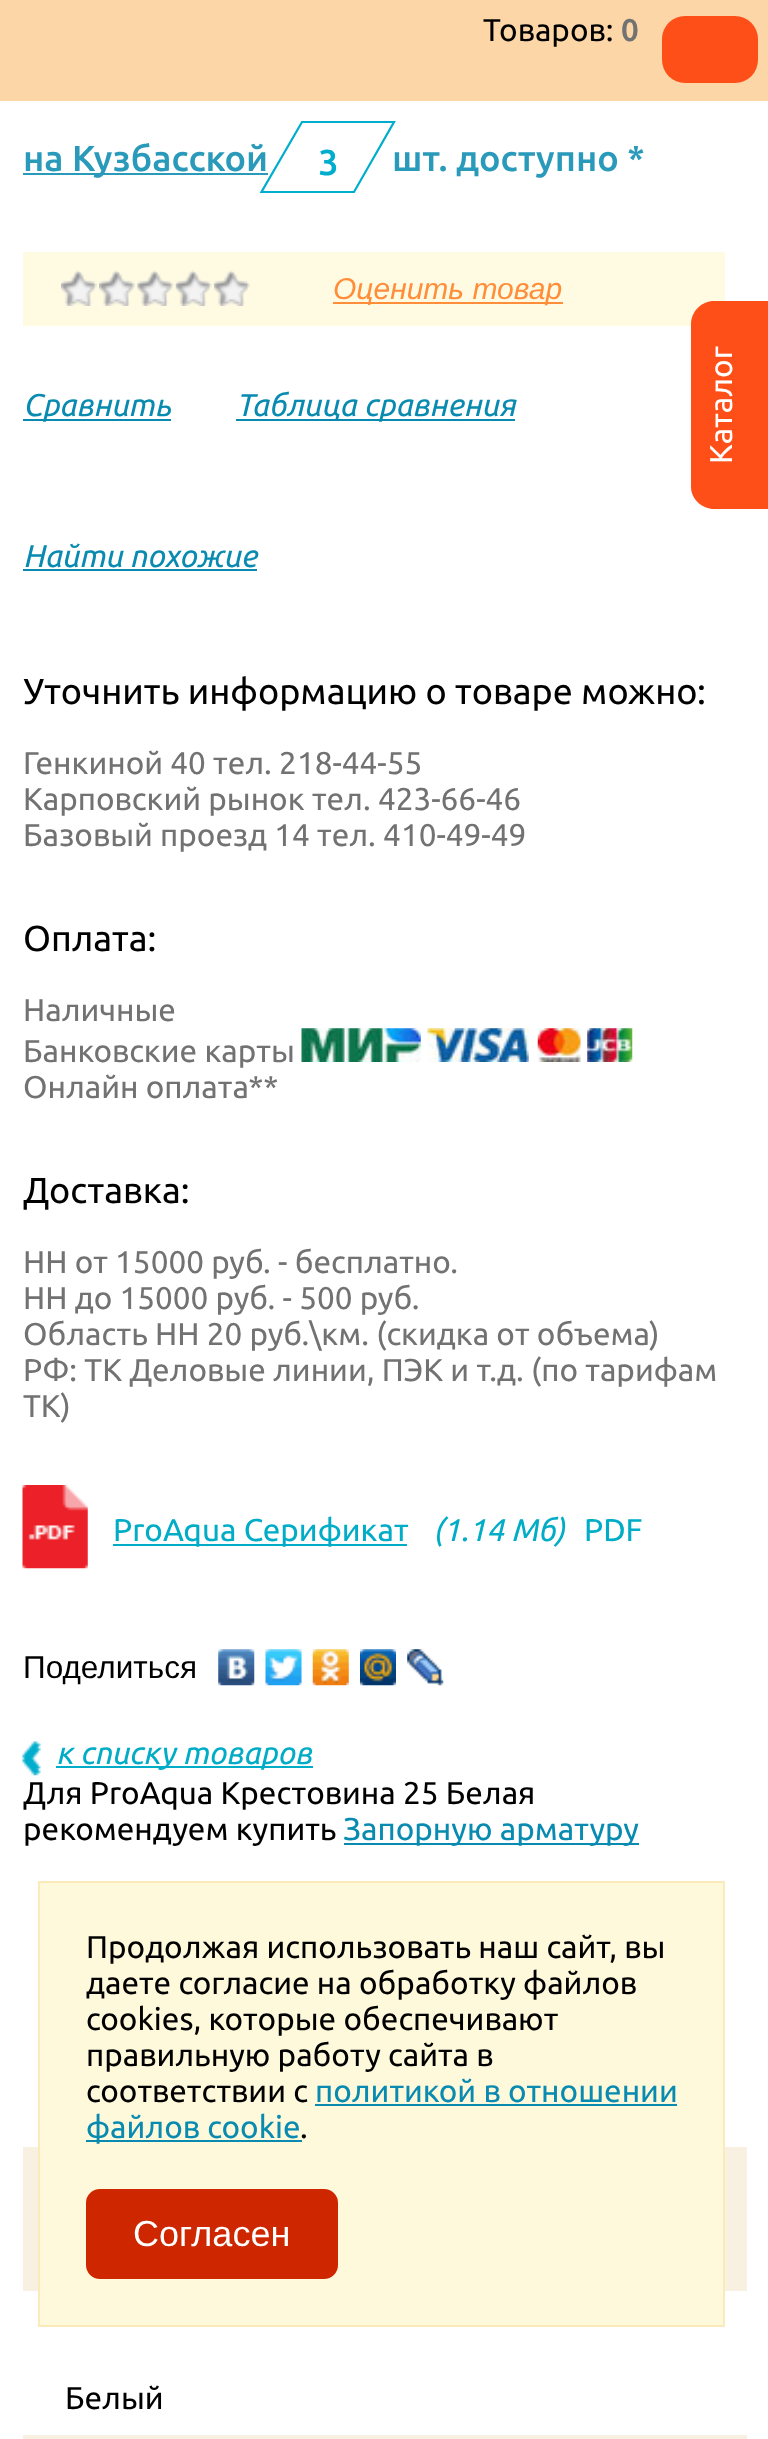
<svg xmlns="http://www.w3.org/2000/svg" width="768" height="2439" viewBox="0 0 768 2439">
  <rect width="100%" height="100%" fill="#fff"/>
  <path d="M0 0h768v101H0z" fill="#fcd6a7"/>
  <rect x="662" y="16" width="96" height="67" rx="23" fill="#ff4f19"/>
  <path d="M23 173h245v2H23z" fill="#2a9abb"/>
  <path d="M23 252h702v74H23z" fill="#fffbe3"/>
  <image x="60" y="270" width="37" height="36" href="img/1.png"/>
  <image x="99" y="270" width="36" height="36" href="img/2.png"/>
  <image x="137" y="270" width="37" height="36" href="img/3.png"/>
  <image x="175" y="270" width="37" height="36" href="img/4.png"/>
  <image x="213" y="270" width="37" height="36" href="img/1.png"/>
  <path d="M333 302h230v2H333z" fill="#ff8d39"/>
  <path d="M23 419h148v2H23z" fill="#098bb1"/>
  <path d="M236 419h279v2H236z" fill="#098bb1"/>
  <path d="M23 569h234v2H23z" fill="#098bb1"/>
  <image x="301" y="1028" width="120" height="34" href="img/5.png"/>
  <image x="427" y="1028" width="102" height="34" href="img/6.png"/>
  <image x="537" y="1028" width="44" height="34" href="img/7.png"/>
  <image x="587" y="1028" width="46" height="34" href="img/8.png"/>
  <image x="22" y="1485" width="66" height="84" href="img/9.png"/>
  <path d="M113 1544h294v2H113z" fill="#00acc6"/>
  <image x="218" y="1649" width="37" height="37" href="img/10.png"/>
  <image x="265" y="1649" width="37" height="37" href="img/11.png"/>
  <image x="312" y="1649" width="37" height="37" href="img/12.png"/>
  <image x="360" y="1649" width="36" height="37" href="img/13.png"/>
  <image x="407" y="1649" width="37" height="37" href="img/14.png"/>
  <image x="22" y="1746" width="19" height="30" href="img/15.png"/>
  <image x="22" y="1741" width="19" height="30" href="img/16.png"/>
  <path d="M56 1766h257v2H56z" fill="#00acc6"/>
  <path d="M344 1843h295v2H344z" fill="#098bb1"/>
  <path d="M23 2147h724v144H23z" fill="#f8f0e1"/>
  <path d="M23 2435h724v4H23z" fill="#f8f0e1"/>
  <path d="M691 487V324C691 311 702 301 714 301H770V509H714C702 509 691 499 691 487Z" fill="#ff4f19"/>
  <path d="M39 1882h685v444H39z" fill="#fff9db" stroke="#fdeaba" stroke-width="2"/>
  <path d="M315 2104h362v2H315z" fill="#098bb1"/>
  <path d="M86 2140h216v2H86z" fill="#098bb1"/>
  <rect x="87" y="2190" width="250" height="88" rx="13" fill="#ce2700" stroke="#ce2700" stroke-width="2"/>
  <text x="483" y="41" font-family="Ubuntu" font-size="31.5" fill="#010000">Товаров:</text>
  <text x="621" y="41" font-family="Ubuntu" font-size="31.5" font-weight="bold" fill="#727272">0</text>
  <g font-family="Ubuntu" font-size="36" font-weight="500" fill="#2a9abb">
    <text x="23" y="171">на Кузбасской</text>
    <text x="392" y="171">шт. доступно *</text>
  </g>
  <path d="M302 122H394L354 192H261.5Z" fill="none" stroke="#00adcc" stroke-width="2.2"/>
  <text x="318" y="175" font-family="Ubuntu" font-size="36" font-weight="500" fill="#00adcc">3</text>
  <text x="333" y="299" font-family="Liberation Sans" font-size="30" font-style="italic" fill="#ff8d39">Оценить товар</text>
  <g font-family="Ubuntu" font-size="31.5" font-style="italic" fill="#098bb1">
    <text x="23" y="416">Сравнить</text>
    <text x="236" y="416">Таблица сравнения</text>
    <text x="23" y="567">Найти похожие</text>
  </g>
  <text x="23" y="704" font-family="Ubuntu" font-size="36" fill="#010000">Уточнить информацию о товаре можно:</text>
  <g font-family="Ubuntu" font-size="31.5" fill="#727272">
    <text x="23" y="774">Генкиной 40 тел. 218-44-55</text>
    <text x="23" y="810">Карповский рынок тел. 423-66-46</text>
    <text x="23" y="846">Базовый проезд 14 тел. 410-49-49</text>
  </g>
  <text x="23" y="951" font-family="Ubuntu" font-size="36" fill="#010000">Оплата:</text>
  <g font-family="Ubuntu" font-size="31.5" fill="#727272">
    <text x="23" y="1021">Наличные</text>
    <text x="23" y="1062">Банковские карты</text>
    <text x="23" y="1098">Онлайн оплата**</text>
  </g>
  <text x="23" y="1203" font-family="Ubuntu" font-size="36" fill="#010000">Доставка:</text>
  <g font-family="Ubuntu" font-size="31.5" fill="#727272">
    <text x="23" y="1273">НН от 15000 руб. - бесплатно.</text>
    <text x="23" y="1309">НН до 15000 руб. - 500 руб.</text>
    <text x="23" y="1345">Область НН 20 руб.\км. (скидка от объема)</text>
    <text x="23" y="1381">РФ: ТК Деловые линии, ПЭК и т.д. (по тарифам</text>
    <text x="23" y="1417">ТК)</text>
  </g>
  <text x="113" y="1541" font-family="Ubuntu" font-size="31.5" fill="#00acc6">ProAqua Серификат</text>
  <text x="433" y="1541" font-family="Ubuntu" font-size="31.5" font-style="italic" fill="#00acc6">(1.14 Мб)</text>
  <text x="584" y="1541" font-family="Ubuntu" font-size="31.5" fill="#00acc6">PDF</text>
  <text x="23" y="1678" font-family="Liberation Sans" font-size="31.5" fill="#010000">Поделиться</text>
  <text x="56" y="1764" font-family="Ubuntu" font-size="31.5" font-style="italic" fill="#00acc6">к списку товаров</text>
  <g font-family="Ubuntu" font-size="31.5" fill="#010000">
    <text x="23" y="1804">Для ProAqua Крестовина 25 Белая</text>
    <text x="23" y="1840">рекомендуем купить</text>
  </g>
  <text x="343" y="1840" font-family="Ubuntu" font-size="31.5" fill="#098bb1">Запорную арматуру</text>
  <text x="65" y="2409" font-family="Ubuntu" font-size="31.5" fill="#010000">Белый</text>
  <text x="732" y="464" transform="rotate(-90 732 464)" font-family="Ubuntu" font-size="31.5" fill="#fff">Каталог</text>
  <g font-family="Ubuntu" font-size="31.5" fill="#010000">
    <text x="86" y="1958">Продолжая использовать наш сайт, вы</text>
    <text x="86" y="1994">даете согласие на обработку файлов</text>
    <text x="86" y="2030">cookies, которые обеспечивают</text>
    <text x="86" y="2066">правильную работу сайта в</text>
    <text x="86" y="2102">соответствии с</text>
  </g>
  <g font-family="Ubuntu" font-size="31.5" fill="#098bb1">
    <text x="315" y="2102">политикой в отношении</text>
    <text x="86" y="2138">файлов cookie</text>
  </g>
  <text x="300" y="2138" font-family="Ubuntu" font-size="31.5" fill="#010000">.</text>
  <text x="133" y="2246" font-family="Liberation Sans" font-size="36" fill="#fff">Согласен</text>
</svg>
